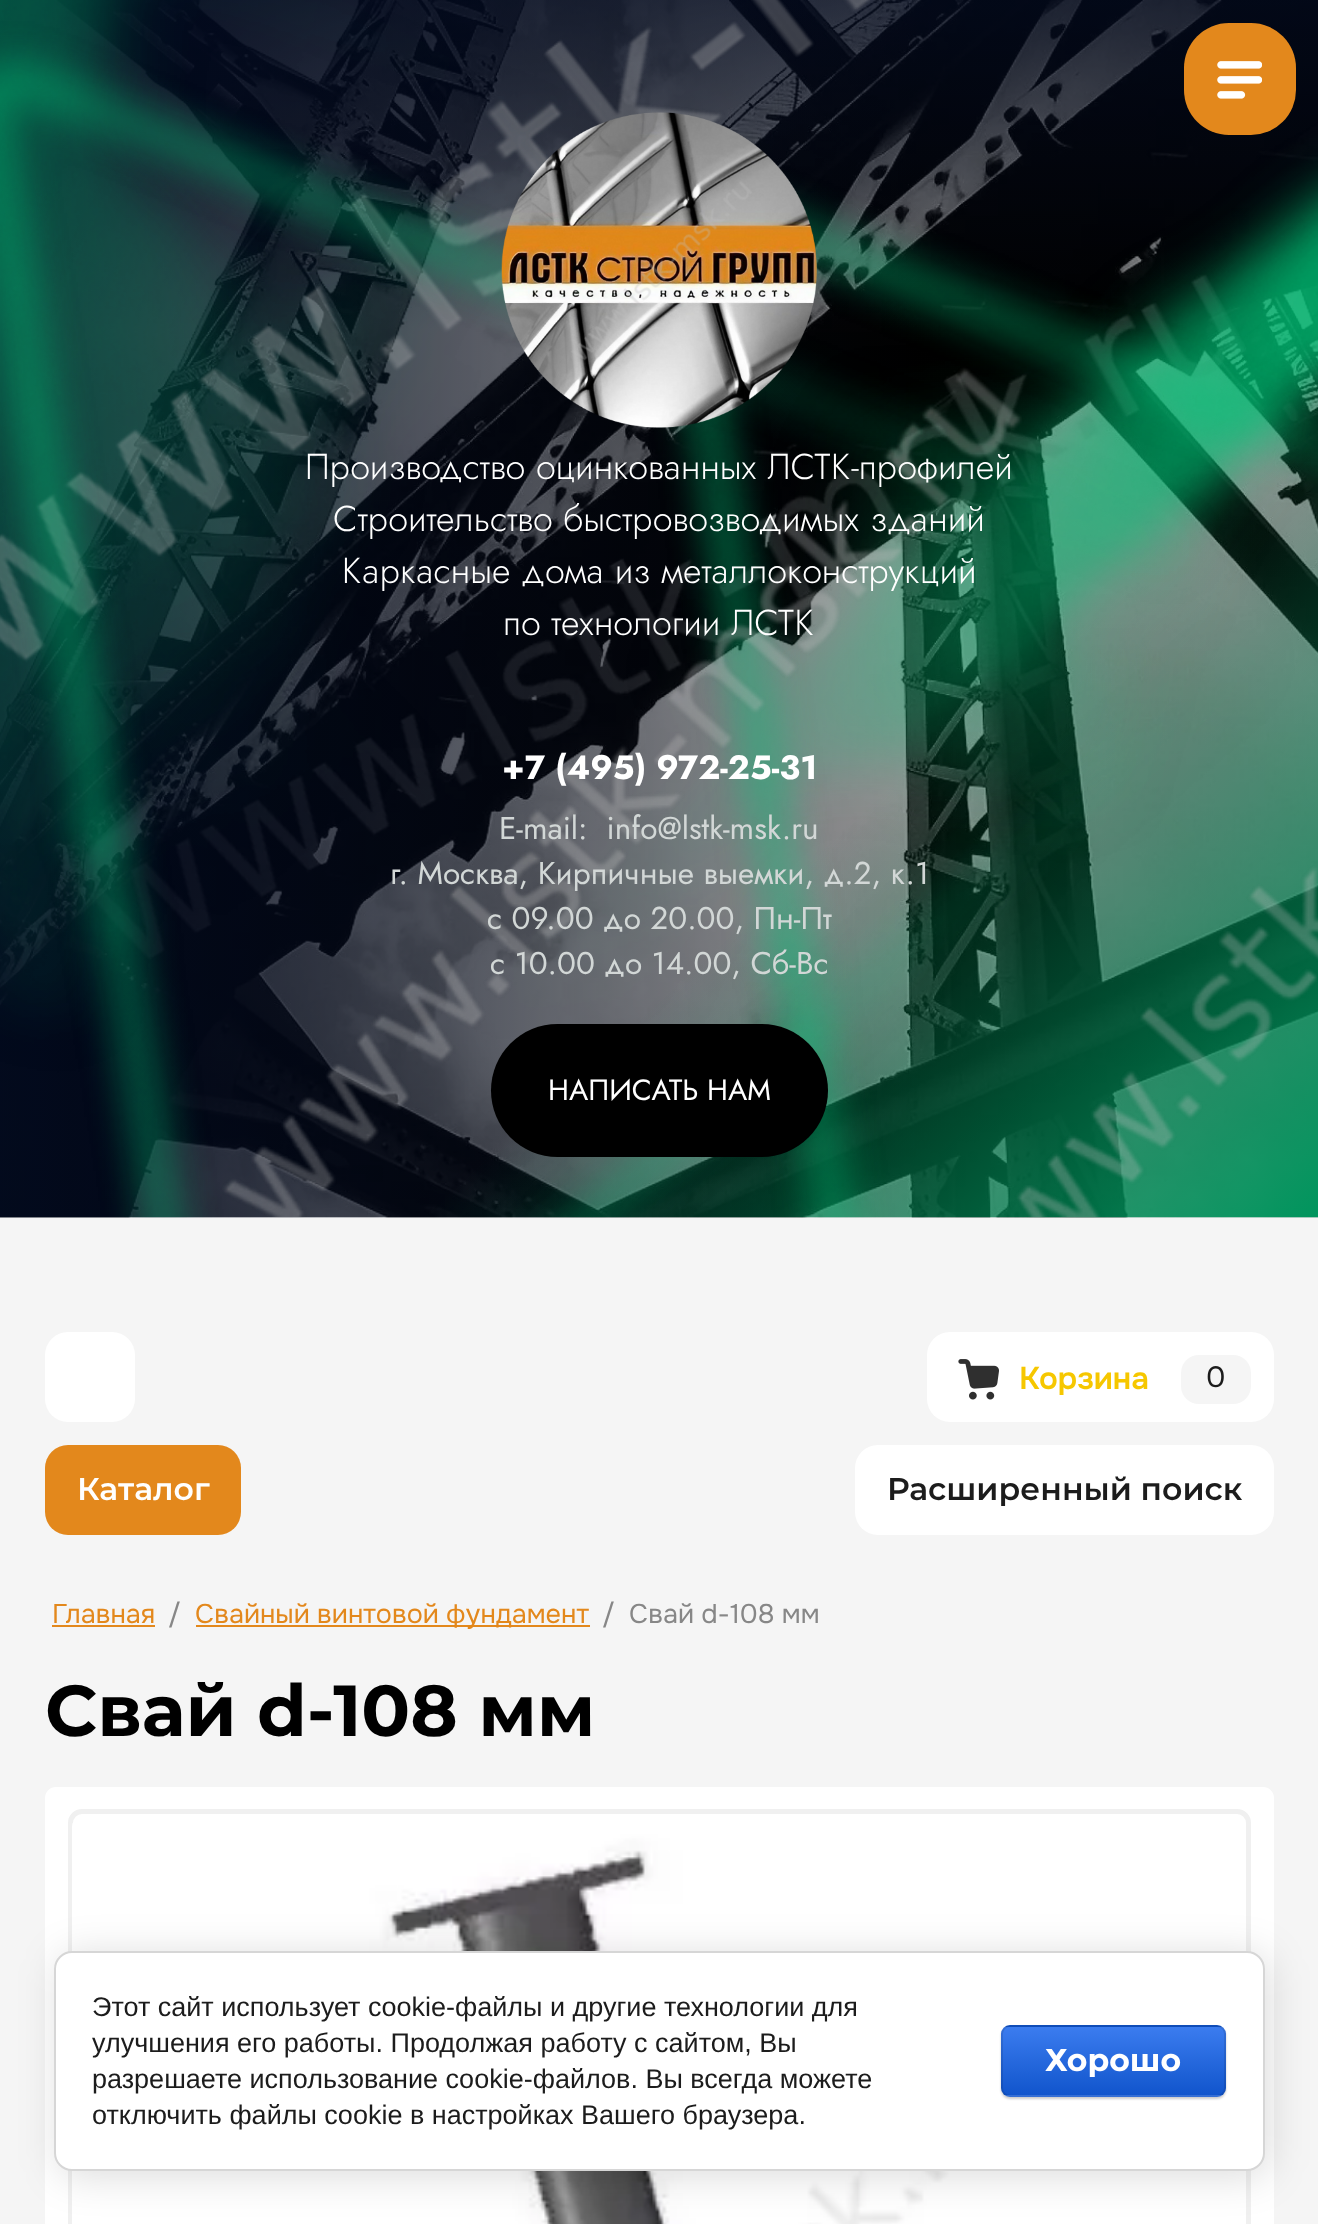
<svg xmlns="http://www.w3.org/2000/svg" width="1318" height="2224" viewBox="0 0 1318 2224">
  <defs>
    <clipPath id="clip1"><rect x="1001" y="2025" width="225" height="72" rx="9"/></clipPath>
    <linearGradient id="g1" gradientUnits="userSpaceOnUse" x1="1114" y1="1960" x2="1114" y2="2027"><stop offset="0" stop-color="#3b7cef"/><stop offset="1" stop-color="#15c"/></linearGradient>
    <linearGradient id="g2" gradientUnits="userSpaceOnUse" x1="1114" y1="2027" x2="1114" y2="2095"><stop offset="0" stop-color="#3b7cef"/><stop offset="1" stop-color="#15c"/></linearGradient>
    <linearGradient id="g3" gradientUnits="userSpaceOnUse" x1="1114" y1="2095" x2="1114" y2="2162"><stop offset="0" stop-color="#3b7cef"/><stop offset="1" stop-color="#15c"/></linearGradient>
  </defs>
  <rect width="100%" height="100%" fill="#f5f5f5"/>
  <image x="0" y="0" width="1318" height="1218" href="img/2.png"/>
  <rect x="1184" y="23" width="112" height="112" rx="45" fill="#e3881c"/>
  <image x="1217" y="61" width="45" height="38" href="img/1.png"/>
  <image x="501" y="112" width="316" height="316" href="img/3.png"/>
  <rect x="491" y="1024" width="337" height="133" rx="66.5" fill="#000"/>
  <rect x="45" y="1332" width="90" height="90" rx="23" fill="#fff"/>
  <rect x="927" y="1332" width="347" height="90" rx="23" fill="#fff"/>
  <image x="958" y="1359" width="41" height="41" href="img/4.png"/>
  <rect x="1181" y="1355" width="70" height="49" rx="18" fill="#f5f5f5"/>
  <rect x="45" y="1445" width="196" height="90" rx="23" fill="#e3881c"/>
  <rect x="855" y="1445" width="419" height="90" rx="23" fill="#fff"/>
  <path d="M52 1625h103v2H52z" fill="#e3881c"/>
  <path d="M196 1625h394v2H196z" fill="#e3881c"/>
  <rect x="45" y="1787" width="1229" height="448" rx="11" fill="#fff"/>
  <rect x="70.5" y="1811.5" width="1178" height="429" rx="11.5" fill="none" stroke="#f0f0f0" stroke-width="5"/>
  <image x="72" y="1823" width="934" height="401" href="img/5.png"/>
  <rect x="59" y="1955" width="1210" height="221" rx="18" fill="#00000024" filter="blur(20px)"/>
  <rect x="55" y="1952" width="1209" height="218" rx="17" fill="#fff" stroke="#d6d6d6" stroke-width="2"/>
  <rect x="1001" y="2027" width="225" height="72" rx="9" fill="#00000033" filter="blur(1px)"/>
  <g clip-path="url(#clip1)">
    <path d="M1001 2025h225v2H1001z" fill="url(#g1)"/>
    <path d="M1001 2027h225v68H1001z" fill="url(#g2)"/>
    <path d="M1001 2095h225v2H1001z" fill="url(#g3)"/>
  </g>
  <rect x="1002" y="2026" width="223" height="70" rx="8" fill="none" stroke="#0000001a" stroke-width="2"/>
  <g font-family="Jost" font-size="36" font-weight="300" fill="#fff">
    <text x="305" y="479">Производство оцинкованных ЛСТК-профилей</text>
    <text x="333" y="531">Строительство быстровозводимых зданий</text>
    <text x="342" y="583">Каркасные дома из металлоконструкций</text>
    <text x="503" y="635">по технологии ЛСТК</text>
  </g>
  <text x="502" y="779" font-family="Jost" font-size="33.75" font-weight="bold" fill="#fff">+7 (495) 972-25-31</text>
  <g font-family="Jost" font-size="31.5" fill="#d2d7d6">
    <text x="499" y="839" xml:space="preserve">E-mail:  info@lstk-msk.ru</text>
    <text x="390" y="884">г. Москва, Кирпичные выемки, д.2, к.1</text>
    <text x="487" y="929">с 09.00 до 20.00, Пн-Пт</text>
    <text x="490" y="974">с 10.00 до 14.00, Сб-Вс</text>
  </g>
  <text x="548" y="1100" font-family="Jost" font-size="29.25" fill="#fff">НАПИСАТЬ НАМ</text>
  <text x="1019" y="1389" font-family="Onest" font-size="31.5" font-weight="600" fill="#f6c700">Корзина</text>
  <text x="1206" y="1387" font-family="Onest" font-size="29.25" fill="#1c1c1c">0</text>
  <text x="77" y="1500" font-family="Montserrat" font-size="31.5" font-weight="600" fill="#fff">Каталог</text>
  <text x="887" y="1500" font-family="Montserrat" font-size="31.5" font-weight="600" fill="#1c1c1c">Расширенный поиск</text>
  <text x="52" y="1623" font-family="Onest" font-size="27" fill="#e3881c">Главная</text>
  <text x="168" y="1623" font-family="Onest" font-size="27" fill="#878787">/</text>
  <text x="195" y="1623" font-family="Onest" font-size="27" fill="#e3881c">Свайный винтовой фундамент</text>
  <g font-family="Onest" font-size="27" fill="#878787">
    <text x="602" y="1623">/</text>
    <text x="629" y="1623">Свай d-108 мм</text>
  </g>
  <text x="45" y="1736" font-family="Montserrat" font-size="72" font-weight="bold" fill="#000">Свай d-108 мм</text>
  <g font-family="Liberation Sans" font-size="27" fill="#1c1c1c">
    <text x="92" y="2016">Этот сайт использует cookie-файлы и другие технологии для</text>
    <text x="92" y="2052">улучшения его работы. Продолжая работу с сайтом, Вы</text>
    <text x="92" y="2088">разрешаете использование cookie-файлов. Вы всегда можете</text>
    <text x="92" y="2124">отключить файлы cookie в настройках Вашего браузера.</text>
  </g>
  <text x="1045" y="2071" font-family="Montserrat" font-size="31.5" font-weight="bold" fill="#fff">Хорошо</text>
</svg>
